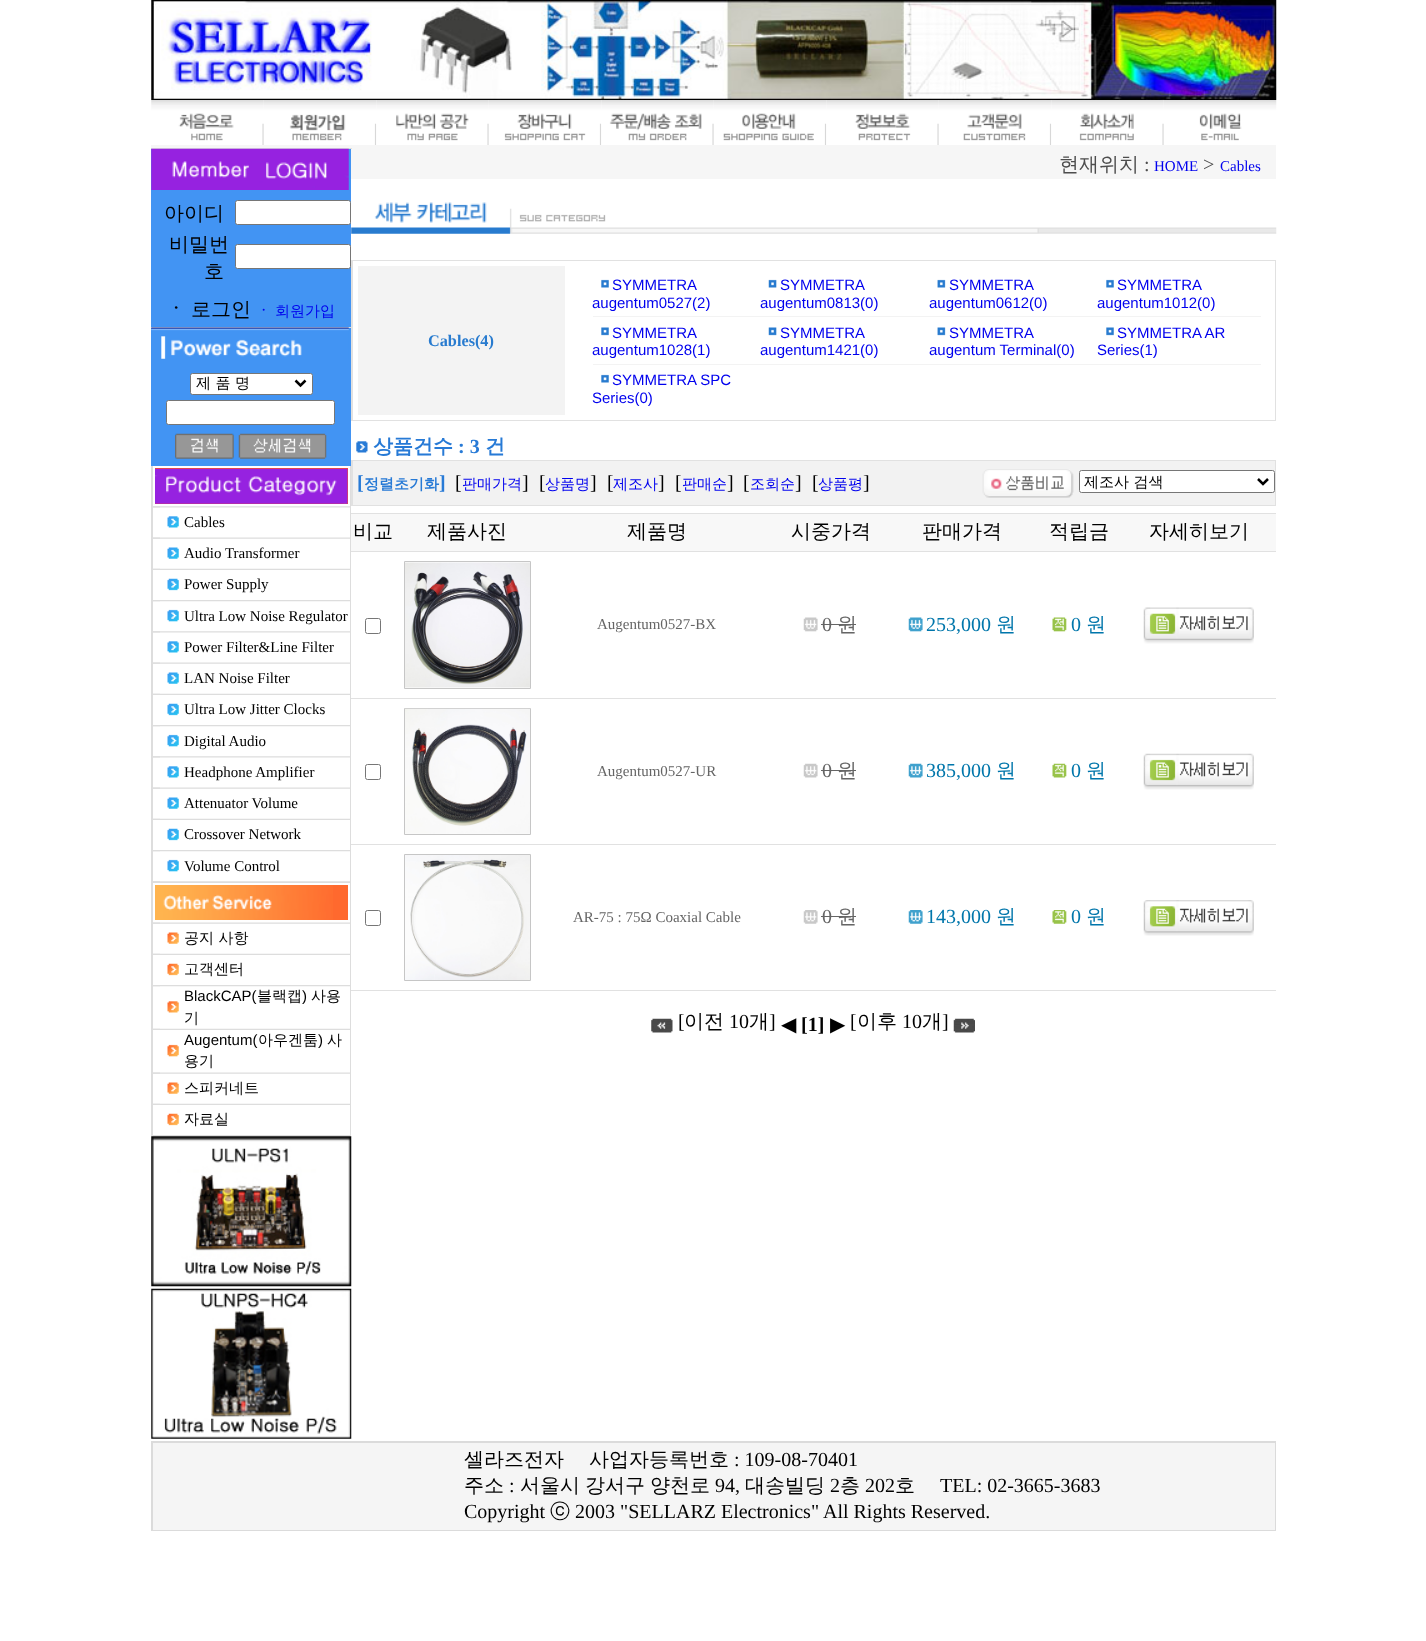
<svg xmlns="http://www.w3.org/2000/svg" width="1426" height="1641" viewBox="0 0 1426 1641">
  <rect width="100%" height="100%" fill="#fff"/>
  <image x="151" y="0" width="1126" height="100" href="img/1.png"/>
  <image x="151" y="100" width="113" height="45" href="img/2.png"/>
  <image x="263" y="100" width="114" height="45" href="img/3.png"/>
  <image x="376" y="100" width="113" height="45" href="img/4.png"/>
  <image x="488" y="100" width="114" height="45" href="img/5.png"/>
  <image x="601" y="100" width="113" height="45" href="img/6.png"/>
  <image x="713" y="100" width="114" height="45" href="img/7.png"/>
  <image x="826" y="100" width="113" height="45" href="img/8.png"/>
  <image x="938" y="100" width="114" height="45" href="img/9.png"/>
  <image x="1051" y="100" width="113" height="45" href="img/10.png"/>
  <image x="1163" y="100" width="114" height="45" href="img/11.png"/>
  <path d="M151 145h1125v4H151z" fill="#f6f6f6"/>
  <path d="M151 148h201v1H151z" fill="#ddd"/>
  <path d="M151 149h200v178H151z" fill="#4294f3"/>
  <image x="151" y="148" width="198" height="42" href="img/12.png"/>
  <rect x="235.5" y="200.5" width="115" height="24" rx="2" fill="#fff" stroke="#767676"/>
  <rect x="235.5" y="244.5" width="115" height="24" rx="2" fill="#fff" stroke="#767676"/>
  <path d="M151 327h200v809H151z" fill="#ddd"/>
  <path d="M151 328h200v138H151z" fill="#4294f3"/>
  <image x="151" y="327" width="198" height="32" href="img/13.png"/>
  <rect x="190.5" y="373.5" width="122" height="21" rx="2" fill="#fff" stroke="#767676"/>
  <path d="M295.5 380.5L300.5 385.5L305.5 380.5" fill="none" stroke="#000" stroke-width="2.5"/>
  <rect x="166.5" y="400.5" width="168" height="24" rx="2" fill="#fff" stroke="#767676"/>
  <image x="175" y="433" width="59" height="26" href="img/14.png"/>
  <image x="238" y="433" width="89" height="26" href="img/15.png"/>
  <path d="M153 466h197v416H153z" fill="#fff"/>
  <path d="M155 468h193v36H155z" fill="#ff4f1b"/>
  <image x="155" y="468" width="193" height="36" href="img/16.png"/>
  <image x="153" y="506" width="197" height="2" href="img/17.png"/>
  <image x="153" y="506" width="7" height="2" href="img/18.png"/>
  <image x="167" y="516" width="12" height="12" href="img/19.png"/>
  <image x="153" y="537" width="197" height="2" href="img/20.png"/>
  <image x="153" y="537" width="7" height="2" href="img/21.png"/>
  <image x="167" y="547" width="12" height="12" href="img/22.png"/>
  <image x="153" y="568" width="197" height="2" href="img/23.png"/>
  <path d="M153 568h7v1H153z" fill="#f0f0f0"/>
  <image x="167" y="578" width="12" height="13" href="img/24.png"/>
  <image x="153" y="600" width="197" height="2" href="img/25.png"/>
  <path d="M153 601h7v1H153z" fill="#f0f0f0"/>
  <image x="167" y="609" width="12" height="13" href="img/26.png"/>
  <image x="153" y="631" width="197" height="2" href="img/17.png"/>
  <image x="153" y="631" width="7" height="2" href="img/18.png"/>
  <image x="167" y="641" width="12" height="12" href="img/19.png"/>
  <image x="153" y="662" width="197" height="2" href="img/20.png"/>
  <image x="153" y="662" width="7" height="2" href="img/21.png"/>
  <image x="167" y="672" width="12" height="12" href="img/22.png"/>
  <image x="153" y="693" width="197" height="2" href="img/23.png"/>
  <path d="M153 693h7v1H153z" fill="#f0f0f0"/>
  <image x="167" y="703" width="12" height="13" href="img/24.png"/>
  <image x="153" y="725" width="197" height="2" href="img/25.png"/>
  <path d="M153 726h7v1H153z" fill="#f0f0f0"/>
  <image x="167" y="734" width="12" height="13" href="img/26.png"/>
  <image x="153" y="756" width="197" height="2" href="img/17.png"/>
  <image x="153" y="756" width="7" height="2" href="img/18.png"/>
  <image x="167" y="766" width="12" height="12" href="img/19.png"/>
  <image x="153" y="787" width="197" height="2" href="img/20.png"/>
  <image x="153" y="787" width="7" height="2" href="img/21.png"/>
  <image x="167" y="797" width="12" height="12" href="img/22.png"/>
  <image x="153" y="818" width="197" height="2" href="img/23.png"/>
  <path d="M153 818h7v1H153z" fill="#f0f0f0"/>
  <image x="167" y="828" width="12" height="13" href="img/24.png"/>
  <image x="153" y="850" width="197" height="2" href="img/25.png"/>
  <path d="M153 851h7v1H153z" fill="#f0f0f0"/>
  <image x="167" y="859" width="12" height="13" href="img/26.png"/>
  <image x="160" y="881" width="190" height="1" href="img/27.png"/>
  <path d="M153 881h7v1H153z" fill="#dedede"/>
  <path d="M153 883h197v252H153z" fill="#fff"/>
  <path d="M333 885h15v35H333z" fill="#ff692e"/>
  <image x="155" y="885" width="178" height="35" href="img/28.png"/>
  <image x="153" y="922" width="197" height="2" href="img/20.png"/>
  <image x="153" y="922" width="7" height="2" href="img/21.png"/>
  <image x="167" y="932" width="12" height="12" href="img/29.png"/>
  <image x="153" y="953" width="197" height="2" href="img/23.png"/>
  <path d="M153 953h7v1H153z" fill="#f0f0f0"/>
  <image x="167" y="963" width="12" height="13" href="img/30.png"/>
  <image x="153" y="985" width="197" height="2" href="img/25.png"/>
  <path d="M153 986h7v1H153z" fill="#f0f0f0"/>
  <image x="167" y="1001" width="12" height="12" href="img/31.png"/>
  <image x="153" y="1028" width="197" height="2" href="img/23.png"/>
  <path d="M153 1028h7v1H153z" fill="#f0f0f0"/>
  <image x="167" y="1044" width="12" height="13" href="img/32.png"/>
  <image x="153" y="1072" width="197" height="2" href="img/20.png"/>
  <image x="153" y="1072" width="7" height="2" href="img/21.png"/>
  <image x="167" y="1082" width="12" height="12" href="img/29.png"/>
  <image x="153" y="1103" width="197" height="2" href="img/23.png"/>
  <path d="M153 1103h7v1H153z" fill="#f0f0f0"/>
  <image x="167" y="1113" width="12" height="13" href="img/30.png"/>
  <image x="152" y="1136" width="8" height="1" href="img/33.png"/>
  <image x="151" y="1136" width="201" height="151" href="img/34.png"/>
  <image x="151" y="1288" width="201" height="151" href="img/35.png"/>
  <path d="M351 149h925v30H351z" fill="#f6f6f6"/>
  <image x="351" y="227" width="926" height="7" href="img/36.png"/>
  <image x="351" y="202" width="688" height="32" href="img/37.png"/>
  <path d="M351 260h925v161H351z" fill="#e1e1e1"/>
  <path d="M353 261h922v159H353z" fill="#fff"/>
  <path d="M358 266h207v149H358z" fill="#f3f3f3"/>
  <image x="601" y="279" width="8" height="9" href="img/38.png"/>
  <image x="768" y="279" width="9" height="9" href="img/39.png"/>
  <image x="937" y="279" width="9" height="9" href="img/40.png"/>
  <image x="1106" y="279" width="8" height="9" href="img/38.png"/>
  <path d="M593 316h668v1H593z" fill="#f3f3f3"/>
  <image x="601" y="327" width="8" height="9" href="img/41.png"/>
  <image x="768" y="327" width="9" height="9" href="img/42.png"/>
  <image x="937" y="327" width="9" height="9" href="img/43.png"/>
  <image x="1106" y="327" width="8" height="9" href="img/41.png"/>
  <path d="M593 364h668v1H593z" fill="#f3f3f3"/>
  <image x="601" y="374" width="8" height="9" href="img/38.png"/>
  <image x="356" y="441" width="12" height="12" href="img/44.png"/>
  <path d="M351 460h925v46H351z" fill="#e1e1e1"/>
  <path d="M353 461h922v44H353z" fill="#f2f2f2"/>
  <image x="982" y="469" width="92" height="29" href="img/45.png"/>
  <rect x="1079.5" y="470.5" width="195" height="22" rx="2" fill="#fff" stroke="#767676"/>
  <path d="M1258 479L1263 484L1268 479" fill="none" stroke="#000" stroke-width="2.5"/>
  <path d="M351 513h925v1H351z" fill="#e1e1e1"/>
  <path d="M351 514h925v37H351z" fill="#f8f8f8"/>
  <path d="M351 551h925v1H351z" fill="#e1e1e1"/>
  <rect x="365.5" y="618.5" width="15" height="15" rx="2" fill="none" stroke="#767676"/>
  <path d="M404.5 561.5h126v127H404.5z" fill="none" stroke="#c6c6c6"/>
  <image x="405" y="562" width="125" height="126" href="img/46.png"/>
  <image x="803" y="617" width="15" height="15" href="img/47.png"/>
  <path d="M821 624h35v1H821z" fill="#656565"/>
  <image x="908" y="617" width="15" height="15" href="img/48.png"/>
  <image x="1052" y="617" width="15" height="15" href="img/49.png"/>
  <image x="1143" y="607" width="111" height="37" href="img/50.png"/>
  <path d="M351 698h925v1H351z" fill="#e1e1e1"/>
  <rect x="365.5" y="764.5" width="15" height="15" rx="2" fill="none" stroke="#767676"/>
  <path d="M404.5 708.5h126v126H404.5z" fill="none" stroke="#c6c6c6"/>
  <image x="405" y="708" width="125" height="126" href="img/51.png"/>
  <image x="803" y="763" width="15" height="15" href="img/52.png"/>
  <path d="M821 770h35v1H821z" fill="#656565"/>
  <image x="908" y="763" width="15" height="15" href="img/53.png"/>
  <image x="1052" y="763" width="15" height="15" href="img/54.png"/>
  <image x="1143" y="753" width="111" height="37" href="img/55.png"/>
  <path d="M351 844h925v1H351z" fill="#e1e1e1"/>
  <rect x="365.5" y="910.5" width="15" height="15" rx="2" fill="none" stroke="#767676"/>
  <path d="M404.5 854.5h126v126H404.5z" fill="none" stroke="#c6c6c6"/>
  <image x="405" y="855" width="125" height="125" href="img/56.png"/>
  <image x="803" y="910" width="15" height="14" href="img/57.png"/>
  <path d="M821 916h35v1H821z" fill="#656565"/>
  <image x="908" y="910" width="15" height="14" href="img/58.png"/>
  <image x="1052" y="910" width="15" height="14" href="img/59.png"/>
  <image x="1143" y="900" width="111" height="36" href="img/60.png"/>
  <path d="M351 990h925v1H351z" fill="#e1e1e1"/>
  <image x="651" y="1018" width="22" height="15" href="img/61.png"/>
  <image x="953" y="1018" width="22" height="15" href="img/62.png"/>
  <path d="M151 1441h1125v90H151z" fill="#dbdbdb"/>
  <path d="M153 1443h1122v87H153z" fill="#f5f5f5"/>
  <g font-family="WenQuanYi Zen Hei" font-size="20" font-weight="500" fill="#000">
    <text x="164" y="220">아이디</text>
    <text x="169" y="251">비밀번</text>
    <text x="204" y="278">호</text>
  </g>
  <text x="166" y="316" font-family="WenQuanYi Zen Hei" font-size="20" font-weight="bold" fill="#000">ㆍ</text>
  <text x="191" y="316" font-family="WenQuanYi Zen Hei" font-size="20" font-weight="500" fill="#000">로그인</text>
  <text x="275" y="316" font-family="WenQuanYi Zen Hei" font-size="15" font-weight="500" fill="#00e">회원가입</text>
  <text x="256" y="316" font-family="WenQuanYi Zen Hei" font-size="15" font-weight="bold" fill="#00e">ㆍ</text>
  <text x="196" y="388" font-family="WenQuanYi Zen Hei" font-size="15" font-weight="500" fill="#000">제 품 명</text>
  <g font-family="Liberation Serif" font-size="15" fill="#000">
    <text x="184" y="527">Cables</text>
    <text x="184" y="558">Audio Transformer</text>
    <text x="184" y="589">Power Supply</text>
    <text x="184" y="621">Ultra Low Noise Regulator</text>
    <text x="184" y="652">Power Filter&amp;Line Filter</text>
    <text x="184" y="683">LAN Noise Filter</text>
    <text x="184" y="714">Ultra Low Jitter Clocks</text>
    <text x="184" y="746">Digital Audio</text>
    <text x="184" y="777">Headphone Amplifier</text>
    <text x="184" y="808">Attenuator Volume</text>
    <text x="184" y="839">Crossover Network</text>
    <text x="184" y="871">Volume Control</text>
  </g>
  <g font-family="WenQuanYi Zen Hei" font-size="15" font-weight="500" fill="#000">
    <text x="184" y="943">공지 사항</text>
    <text x="184" y="974">고객센터</text>
  </g>
  <text x="184" y="1001" font-family="Liberation Sans" font-size="15" fill="#000">BlackCAP(</text>
  <text x="257" y="1001" font-family="WenQuanYi Zen Hei" font-size="15" font-weight="500" fill="#000">블랙캡</text>
  <text x="302" y="1001" font-family="Liberation Sans" font-size="15" fill="#000">)</text>
  <g font-family="WenQuanYi Zen Hei" font-size="15" font-weight="500" fill="#000">
    <text x="311" y="1001">사용</text>
    <text x="184" y="1023">기</text>
  </g>
  <text x="184" y="1045" font-family="Liberation Sans" font-size="15" fill="#000">Augentum(</text>
  <text x="258" y="1045" font-family="WenQuanYi Zen Hei" font-size="15" font-weight="500" fill="#000">아우겐툼</text>
  <text x="318" y="1045" font-family="Liberation Sans" font-size="15" fill="#000">)</text>
  <g font-family="WenQuanYi Zen Hei" font-size="15" font-weight="500" fill="#000">
    <text x="327" y="1045">사</text>
    <text x="184" y="1066">용기</text>
    <text x="184" y="1093">스피커네트</text>
    <text x="184" y="1124">자료실</text>
  </g>
  <text x="1059" y="171" font-family="WenQuanYi Zen Hei" font-size="20" font-weight="500" fill="#4d4d4d">현재위치</text>
  <text x="1144" y="171" font-family="Liberation Serif" font-size="20" fill="#4d4d4d">:</text>
  <text x="1154" y="171" font-family="Liberation Serif" font-size="15" fill="#00e">HOME</text>
  <text x="1203" y="171" font-family="Liberation Serif" font-size="20" fill="#4d4d4d">&gt;</text>
  <text x="1220" y="171" font-family="Liberation Serif" font-size="15" fill="#00e">Cables</text>
  <text x="428" y="346" font-family="Liberation Serif" font-size="16.25" font-weight="bold" fill="#287bcf">Cables(4)</text>
  <g font-family="Liberation Sans" font-size="15" fill="#00e">
    <text x="612" y="290">SYMMETRA</text>
    <text x="592" y="308">augentum0527(2)</text>
    <text x="780" y="290">SYMMETRA</text>
    <text x="760" y="308">augentum0813(0)</text>
    <text x="949" y="290">SYMMETRA</text>
    <text x="929" y="308">augentum0612(0)</text>
    <text x="1117" y="290">SYMMETRA</text>
    <text x="1097" y="308">augentum1012(0)</text>
    <text x="612" y="338">SYMMETRA</text>
    <text x="592" y="355">augentum1028(1)</text>
    <text x="780" y="338">SYMMETRA</text>
    <text x="760" y="355">augentum1421(0)</text>
    <text x="949" y="338">SYMMETRA</text>
    <text x="929" y="355">augentum Terminal(0)</text>
    <text x="1117" y="338">SYMMETRA AR</text>
    <text x="1097" y="355">Series(1)</text>
    <text x="612" y="385">SYMMETRA SPC</text>
    <text x="592" y="403">Series(0)</text>
  </g>
  <text x="373" y="453" font-family="WenQuanYi Zen Hei" font-size="20" font-weight="bold" fill="#277ad6">상품건수</text>
  <text x="458" y="453" font-family="Liberation Serif" font-size="20" font-weight="bold" fill="#277ad6">: 3</text>
  <text x="485" y="453" font-family="WenQuanYi Zen Hei" font-size="20" font-weight="bold" fill="#277ad6">건</text>
  <text x="357" y="489" font-family="Liberation Serif" font-size="20" font-weight="bold" fill="#277ad6">[</text>
  <text x="364" y="489" font-family="WenQuanYi Zen Hei" font-size="15" font-weight="bold" fill="#277ad6">정렬초기화</text>
  <text x="439" y="489" font-family="Liberation Serif" font-size="20" font-weight="bold" fill="#277ad6">]</text>
  <text x="455" y="489" font-family="Liberation Serif" font-size="20" fill="#000">[</text>
  <text x="462" y="489" font-family="WenQuanYi Zen Hei" font-size="15" font-weight="500" fill="#00e">판매가격</text>
  <g font-family="Liberation Serif" font-size="20" fill="#000">
    <text x="522" y="489">]</text>
    <text x="539" y="489">[</text>
  </g>
  <text x="545" y="489" font-family="WenQuanYi Zen Hei" font-size="15" font-weight="500" fill="#00e">상품명</text>
  <g font-family="Liberation Serif" font-size="20" fill="#000">
    <text x="590" y="489">]</text>
    <text x="607" y="489">[</text>
  </g>
  <text x="613" y="489" font-family="WenQuanYi Zen Hei" font-size="15" font-weight="500" fill="#00e">제조사</text>
  <g font-family="Liberation Serif" font-size="20" fill="#000">
    <text x="658" y="489">]</text>
    <text x="675" y="489">[</text>
  </g>
  <text x="682" y="489" font-family="WenQuanYi Zen Hei" font-size="15" font-weight="500" fill="#00e">판매순</text>
  <g font-family="Liberation Serif" font-size="20" fill="#000">
    <text x="727" y="489">]</text>
    <text x="743" y="489">[</text>
  </g>
  <text x="750" y="489" font-family="WenQuanYi Zen Hei" font-size="15" font-weight="500" fill="#00e">조회순</text>
  <g font-family="Liberation Serif" font-size="20" fill="#000">
    <text x="795" y="489">]</text>
    <text x="812" y="489">[</text>
  </g>
  <text x="818" y="489" font-family="WenQuanYi Zen Hei" font-size="15" font-weight="500" fill="#00e">상품평</text>
  <text x="863" y="489" font-family="Liberation Serif" font-size="20" fill="#000">]</text>
  <text x="1084" y="487" font-family="WenQuanYi Zen Hei" font-size="15" font-weight="500" fill="#000">제조사 검색</text>
  <g font-family="WenQuanYi Zen Hei" font-size="20" font-weight="500" fill="#000">
    <text x="353" y="538">비교</text>
    <text x="427" y="538">제품사진</text>
    <text x="627" y="538">제품명</text>
    <text x="791" y="538">시중가격</text>
    <text x="922" y="538">판매가격</text>
    <text x="1049" y="538">적립금</text>
    <text x="1149" y="538">자세히보기</text>
  </g>
  <text x="597" y="629" font-family="Liberation Serif" font-size="15" fill="#656565">Augentum0527-BX</text>
  <text x="822" y="631" font-family="Liberation Serif" font-size="20" fill="#656565">0</text>
  <text x="837" y="631" font-family="WenQuanYi Zen Hei" font-size="20" font-weight="500" fill="#656565">원</text>
  <text x="926" y="631" font-family="Liberation Serif" font-size="20" fill="#0076ab">253,000</text>
  <text x="996" y="631" font-family="WenQuanYi Zen Hei" font-size="20" font-weight="500" fill="#0076ab">원</text>
  <text x="1071" y="631" font-family="Liberation Serif" font-size="20" fill="#0076ab">0</text>
  <text x="1086" y="631" font-family="WenQuanYi Zen Hei" font-size="20" font-weight="500" fill="#0076ab">원</text>
  <text x="597" y="776" font-family="Liberation Serif" font-size="15" fill="#656565">Augentum0527-UR</text>
  <text x="822" y="777" font-family="Liberation Serif" font-size="20" fill="#656565">0</text>
  <text x="837" y="777" font-family="WenQuanYi Zen Hei" font-size="20" font-weight="500" fill="#656565">원</text>
  <text x="926" y="777" font-family="Liberation Serif" font-size="20" fill="#0076ab">385,000</text>
  <text x="996" y="777" font-family="WenQuanYi Zen Hei" font-size="20" font-weight="500" fill="#0076ab">원</text>
  <text x="1071" y="777" font-family="Liberation Serif" font-size="20" fill="#0076ab">0</text>
  <text x="1086" y="777" font-family="WenQuanYi Zen Hei" font-size="20" font-weight="500" fill="#0076ab">원</text>
  <text x="573" y="922" font-family="Liberation Serif" font-size="15" fill="#656565">AR-75 : 75Ω Coaxial Cable</text>
  <text x="822" y="923" font-family="Liberation Serif" font-size="20" fill="#656565">0</text>
  <text x="837" y="923" font-family="WenQuanYi Zen Hei" font-size="20" font-weight="500" fill="#656565">원</text>
  <text x="926" y="923" font-family="Liberation Serif" font-size="20" fill="#0076ab">143,000</text>
  <text x="996" y="923" font-family="WenQuanYi Zen Hei" font-size="20" font-weight="500" fill="#0076ab">원</text>
  <text x="1071" y="923" font-family="Liberation Serif" font-size="20" fill="#0076ab">0</text>
  <text x="1086" y="923" font-family="WenQuanYi Zen Hei" font-size="20" font-weight="500" fill="#0076ab">원</text>
  <text x="678" y="1028" font-family="Liberation Serif" font-size="20" fill="#000">[</text>
  <text x="684" y="1028" font-family="WenQuanYi Zen Hei" font-size="20" font-weight="500" fill="#000">이전</text>
  <text x="729" y="1028" font-family="Liberation Serif" font-size="20" fill="#000">10</text>
  <text x="749" y="1028" font-family="WenQuanYi Zen Hei" font-size="20" font-weight="500" fill="#000">개</text>
  <text x="769" y="1028" font-family="Liberation Serif" font-size="20" fill="#000">]</text>
  <text x="781" y="1031" font-family="DejaVu Sans" font-size="20" fill="#000">◀</text>
  <text x="801" y="1031" font-family="Liberation Serif" font-size="20" font-weight="bold" fill="#000">[1]</text>
  <text x="830" y="1031" font-family="DejaVu Sans" font-size="20" fill="#000">▶</text>
  <text x="850" y="1028" font-family="Liberation Serif" font-size="20" fill="#000">[</text>
  <text x="857" y="1028" font-family="WenQuanYi Zen Hei" font-size="20" font-weight="500" fill="#000">이후</text>
  <text x="902" y="1028" font-family="Liberation Serif" font-size="20" fill="#000">10</text>
  <text x="922" y="1028" font-family="WenQuanYi Zen Hei" font-size="20" font-weight="500" fill="#000">개</text>
  <text x="942" y="1028" font-family="Liberation Serif" font-size="20" fill="#000">]</text>
  <g font-family="WenQuanYi Zen Hei" font-size="20" font-weight="500" fill="#000">
    <text x="464" y="1466">셀라즈전자</text>
    <text x="589" y="1466">사업자등록번호</text>
  </g>
  <text x="734" y="1466" font-family="Liberation Serif" font-size="20" fill="#000">: 109-08-70401</text>
  <text x="464" y="1492" font-family="WenQuanYi Zen Hei" font-size="20" font-weight="500" fill="#000">주소</text>
  <text x="509" y="1492" font-family="Liberation Serif" font-size="20" fill="#000">:</text>
  <g font-family="WenQuanYi Zen Hei" font-size="20" font-weight="500" fill="#000">
    <text x="520" y="1492">서울시</text>
    <text x="585" y="1492">강서구</text>
    <text x="650" y="1492">양천로</text>
  </g>
  <text x="715" y="1492" font-family="Liberation Serif" font-size="20" fill="#000">94,</text>
  <text x="745" y="1492" font-family="WenQuanYi Zen Hei" font-size="20" font-weight="500" fill="#000">대송빌딩</text>
  <text x="830" y="1492" font-family="Liberation Serif" font-size="20" fill="#000">2</text>
  <text x="840" y="1492" font-family="WenQuanYi Zen Hei" font-size="20" font-weight="500" fill="#000">층</text>
  <text x="865" y="1492" font-family="Liberation Serif" font-size="20" fill="#000">202</text>
  <text x="895" y="1492" font-family="WenQuanYi Zen Hei" font-size="20" font-weight="500" fill="#000">호</text>
  <g font-family="Liberation Serif" font-size="20" fill="#000">
    <text x="940" y="1492">TEL: 02-3665-3683</text>
    <text x="464" y="1518">Copyright</text>
  </g>
  <text x="550" y="1518" font-family="WenQuanYi Zen Hei" font-size="20" font-weight="500" fill="#000">ⓒ</text>
  <text x="575" y="1518" font-family="Liberation Serif" font-size="20" fill="#000">2003 "SELLARZ Electronics" All Rights Reserved.</text>
</svg>
